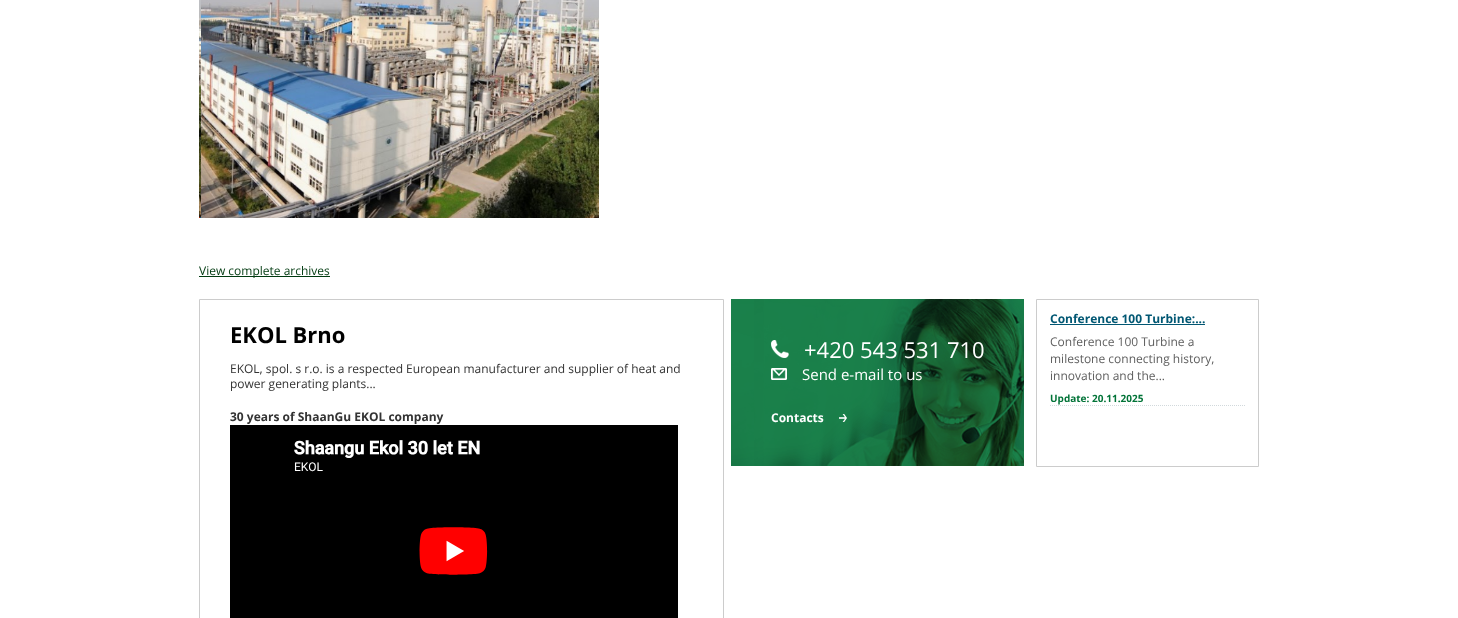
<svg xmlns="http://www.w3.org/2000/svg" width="1458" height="618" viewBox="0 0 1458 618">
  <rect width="100%" height="100%" fill="#fff"/>
  <image x="199" y="0" width="400" height="218" href="img/1.png"/>
  <path d="M199 276h131v1H199z" fill="#003a10"/>
  <path d="M199.5 299.5h524v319H199.5z" fill="none" stroke="#ccc"/>
  <image x="230" y="425" width="448" height="193" href="img/2.png"/>
  <image x="731" y="299" width="293" height="167" href="img/3.png"/>
  <image x="771" y="340" width="18" height="18" href="img/4.png"/>
  <image x="771" y="368" width="16" height="12" href="img/5.png"/>
  <image x="839" y="414" width="8" height="8" href="img/6.png"/>
  <path d="M1036.5 299.5h222v167H1036.5z" fill="none" stroke="#ccc"/>
  <path d="M1050 405.5H1245" fill="none" stroke="#d2d9dc" stroke-dasharray="1 1"/>
  <path d="M1050 324h155v1H1050z" fill="#015773"/>
  <text x="199" y="275" font-family="Open Sans" font-size="12" fill="#003a10">View complete archives</text>
  <text x="230" y="343" font-family="Open Sans" font-size="22" font-weight="bold" fill="#000">EKOL Brno</text>
  <g font-family="Open Sans" font-size="12" fill="#333">
    <text x="230" y="373">EKOL, spol. s r.o. is a respected European manufacturer and supplier of heat and</text>
    <text x="230" y="388">power generating plants...</text>
  </g>
  <text x="230" y="421" font-family="Open Sans" font-size="12" font-weight="bold" fill="#333">30 years of ShaanGu EKOL company</text>
  <text x="804" y="358" font-family="Open Sans" font-size="22" fill="#fff">+420 543 531 710</text>
  <text x="802" y="380" font-family="Open Sans" font-size="15" fill="#fff">Send e-mail to us</text>
  <text x="771" y="422" font-family="Open Sans" font-size="12" font-weight="bold" fill="#fff">Contacts</text>
  <text x="1050" y="323" font-family="Open Sans" font-size="12" font-weight="bold" fill="#015773">Conference 100 Turbine:...</text>
  <g font-family="Open Sans" font-size="12" fill="#5e5e5e">
    <text x="1050" y="346">Conference 100 Turbine a</text>
    <text x="1050" y="363">milestone connecting history,</text>
    <text x="1050" y="380">innovation and the...</text>
  </g>
  <text x="1050" y="402" font-family="Open Sans" font-size="10" font-weight="bold" fill="#017337">Update: 20.11.2025</text>
</svg>
